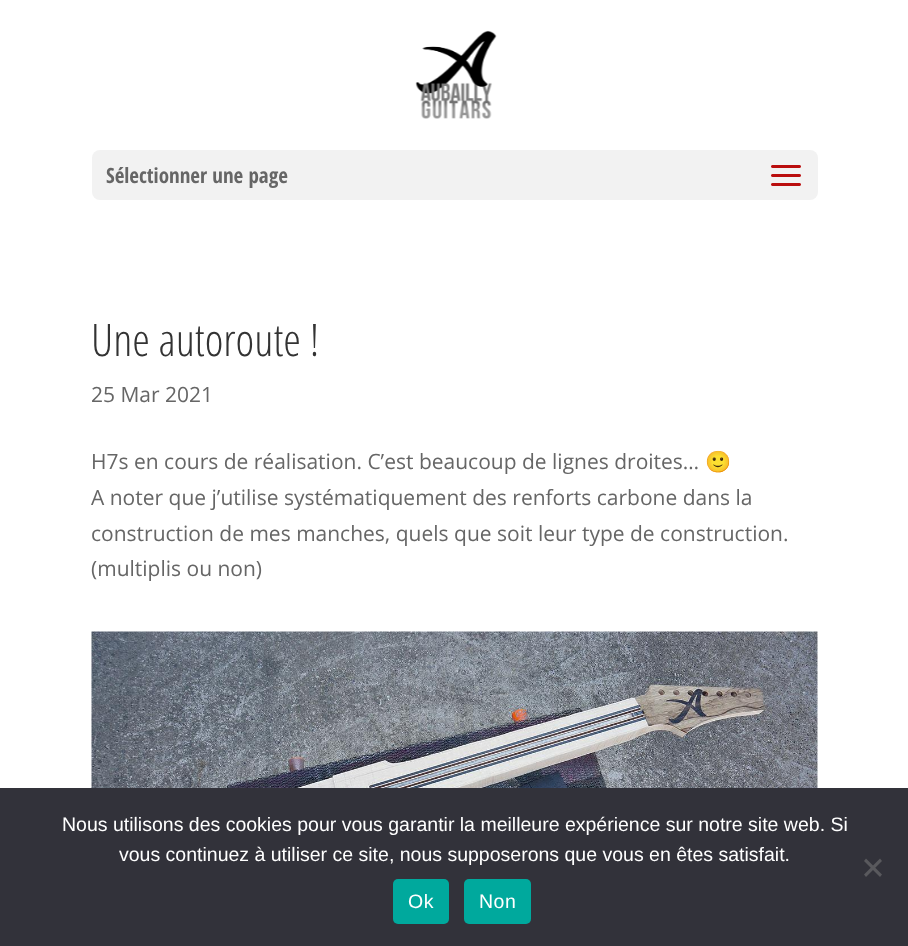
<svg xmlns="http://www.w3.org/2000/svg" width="908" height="946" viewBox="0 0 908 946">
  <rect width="100%" height="100%" fill="#fff"/>
  <image x="415" y="30" width="82" height="89" href="img/1.png"/>
  <rect x="92" y="150" width="726" height="50" rx="8" fill="#f2f2f2"/>
  <image x="771" y="165" width="30" height="21" href="img/2.png"/>
  <image x="91" y="631" width="727" height="157" href="img/3.png"/>
  <path d="M0 788h908v158H0z" fill="#32323a"/>
  <path d="M880 858.5L882 861L866 877L864 874.5Z" fill="#59595d"/>
  <path d="M864 861L866 858.5L882 874.5L880 877Z" fill="#59595d"/>
  <rect x="393" y="879" width="56" height="45" rx="5" fill="#00a99d"/>
  <rect x="464" y="879" width="67" height="45" rx="5" fill="#00a99d"/>
  <text x="106" y="183" font-family="Open Sans Condensed" font-size="21" font-weight="bold" fill="#666">Sélectionner une page</text>
  <text x="91" y="356" font-family="Open Sans Condensed" font-size="45" font-weight="300" fill="#333">Une autoroute !</text>
  <g font-family="Open Sans" font-size="21" fill="#666">
    <text x="91" y="402">25 Mar 2021</text>
    <text x="91" y="469">H7s en cours de réalisation. C’est beaucoup de lignes droites…</text>
  </g>
  <text x="705" y="469" font-family="Noto Color Emoji" font-size="21" fill="#666">🙂</text>
  <g font-family="Open Sans" font-size="21" fill="#666">
    <text x="91" y="505">A noter que j’utilise systématiquement des renforts carbone dans la</text>
    <text x="91" y="541">construction de mes manches, quels que soit leur type de construction.</text>
    <text x="91" y="576">(multiplis ou non)</text>
  </g>
  <g font-family="Liberation Sans" font-size="19.5" fill="#fff">
    <text x="62" y="831">Nous utilisons des cookies pour vous garantir la meilleure expérience sur notre site web. Si</text>
    <text x="119" y="861">vous continuez à utiliser ce site, nous supposerons que vous en êtes satisfait.</text>
  </g>
  <g font-family="Liberation Sans" font-size="19.5" letter-spacing="0.5" fill="#fff">
    <text x="408" y="908">Ok</text>
    <text x="479" y="908">Non</text>
  </g>
</svg>
